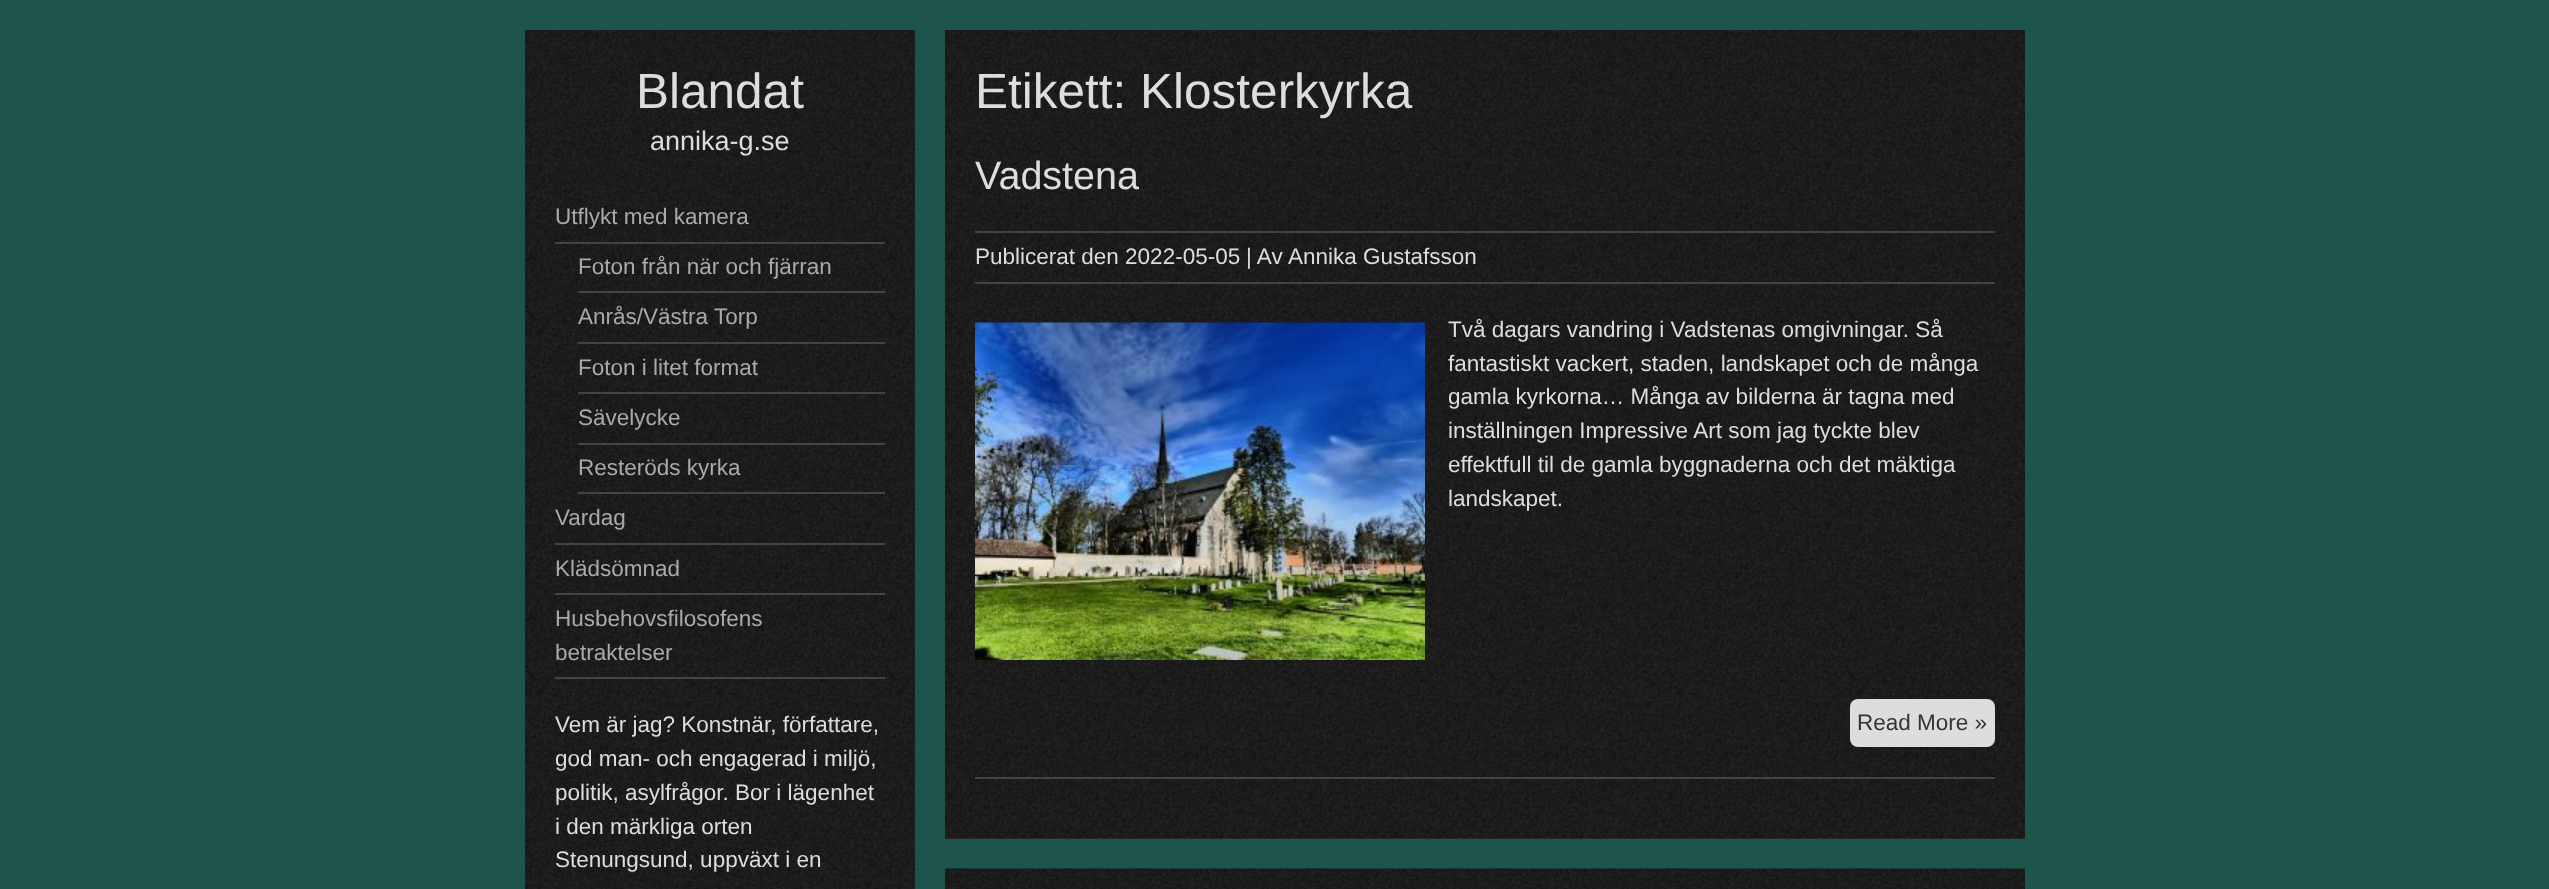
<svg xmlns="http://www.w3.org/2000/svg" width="2549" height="889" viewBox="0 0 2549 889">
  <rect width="100%" height="100%" fill="#1d544b"/>
  <image x="525" y="30" width="390" height="859" href="img/1.png"/>
  <path d="M555 242h330v2H555z" fill="#444"/>
  <path d="M578 291h307v2H578z" fill="#444"/>
  <path d="M578 342h307v2H578z" fill="#444"/>
  <path d="M578 392h307v2H578z" fill="#444"/>
  <path d="M578 443h307v2H578z" fill="#444"/>
  <path d="M578 492h307v2H578z" fill="#444"/>
  <path d="M555 543h330v2H555z" fill="#444"/>
  <path d="M555 593h330v2H555z" fill="#444"/>
  <path d="M555 677h330v2H555z" fill="#444"/>
  <path d="M945 838h1080v1H945z" fill="#333"/>
  <image x="945" y="30" width="1080" height="809" href="img/2.png"/>
  <path d="M975 777h1020v2H975z" fill="#444"/>
  <path d="M975 231h1020v2H975z" fill="#444"/>
  <path d="M975 282h1020v2H975z" fill="#444"/>
  <image x="975" y="322" width="450" height="338" href="img/3.png"/>
  <rect x="1850" y="699" width="145" height="48" rx="8" fill="#ddd"/>
  <image x="945" y="868" width="1080" height="21" href="img/4.png"/>
  <text x="636" y="108" font-family="Liberation Sans" font-size="49.5" fill="#ddd">Blandat</text>
  <text x="650" y="150" font-family="Liberation Sans" font-size="27" fill="#ddd">annika-g.se</text>
  <g font-family="Liberation Sans" font-size="22.5" fill="#aaa">
    <text x="555" y="224">Utflykt med kamera</text>
    <text x="578" y="274">Foton från när och fjärran</text>
    <text x="578" y="324">Anrås/Västra Torp</text>
    <text x="578" y="375">Foton i litet format</text>
    <text x="578" y="425">Sävelycke</text>
    <text x="578" y="475">Resteröds kyrka</text>
    <text x="555" y="525">Vardag</text>
    <text x="555" y="576">Klädsömnad</text>
    <text x="555" y="626">Husbehovsfilosofens</text>
    <text x="555" y="660">betraktelser</text>
  </g>
  <g font-family="Liberation Sans" font-size="22.5" fill="#ddd">
    <text x="555" y="732">Vem är jag? Konstnär, författare,</text>
    <text x="555" y="766">god man- och engagerad i miljö,</text>
    <text x="555" y="800">politik, asylfrågor. Bor i lägenhet</text>
    <text x="555" y="834">i den märkliga orten</text>
    <text x="555" y="867">Stenungsund, uppväxt i en</text>
  </g>
  <text x="975" y="108" font-family="Liberation Sans" font-size="49.5" fill="#ddd">Etikett: Klosterkyrka</text>
  <text x="975" y="189" font-family="Liberation Sans" font-size="39.5" fill="#ddd">Vadstena</text>
  <g font-family="Liberation Sans" font-size="22.5" fill="#ddd">
    <text x="975" y="264">Publicerat den 2022-05-05</text>
    <text x="1246" y="264">| Av</text>
    <text x="1288" y="264">Annika Gustafsson</text>
    <text x="1448" y="337">Två dagars vandring i Vadstenas omgivningar. Så</text>
    <text x="1448" y="371">fantastiskt vackert, staden, landskapet och de många</text>
    <text x="1448" y="404">gamla kyrkorna… Många av bilderna är tagna med</text>
    <text x="1448" y="438">inställningen Impressive Art som jag tyckte blev</text>
    <text x="1448" y="472">effektfull til de gamla byggnaderna och det mäktiga</text>
    <text x="1448" y="506">landskapet.</text>
  </g>
  <text x="1857" y="730" font-family="Liberation Sans" font-size="22.5" fill="#333">Read More »</text>
</svg>
